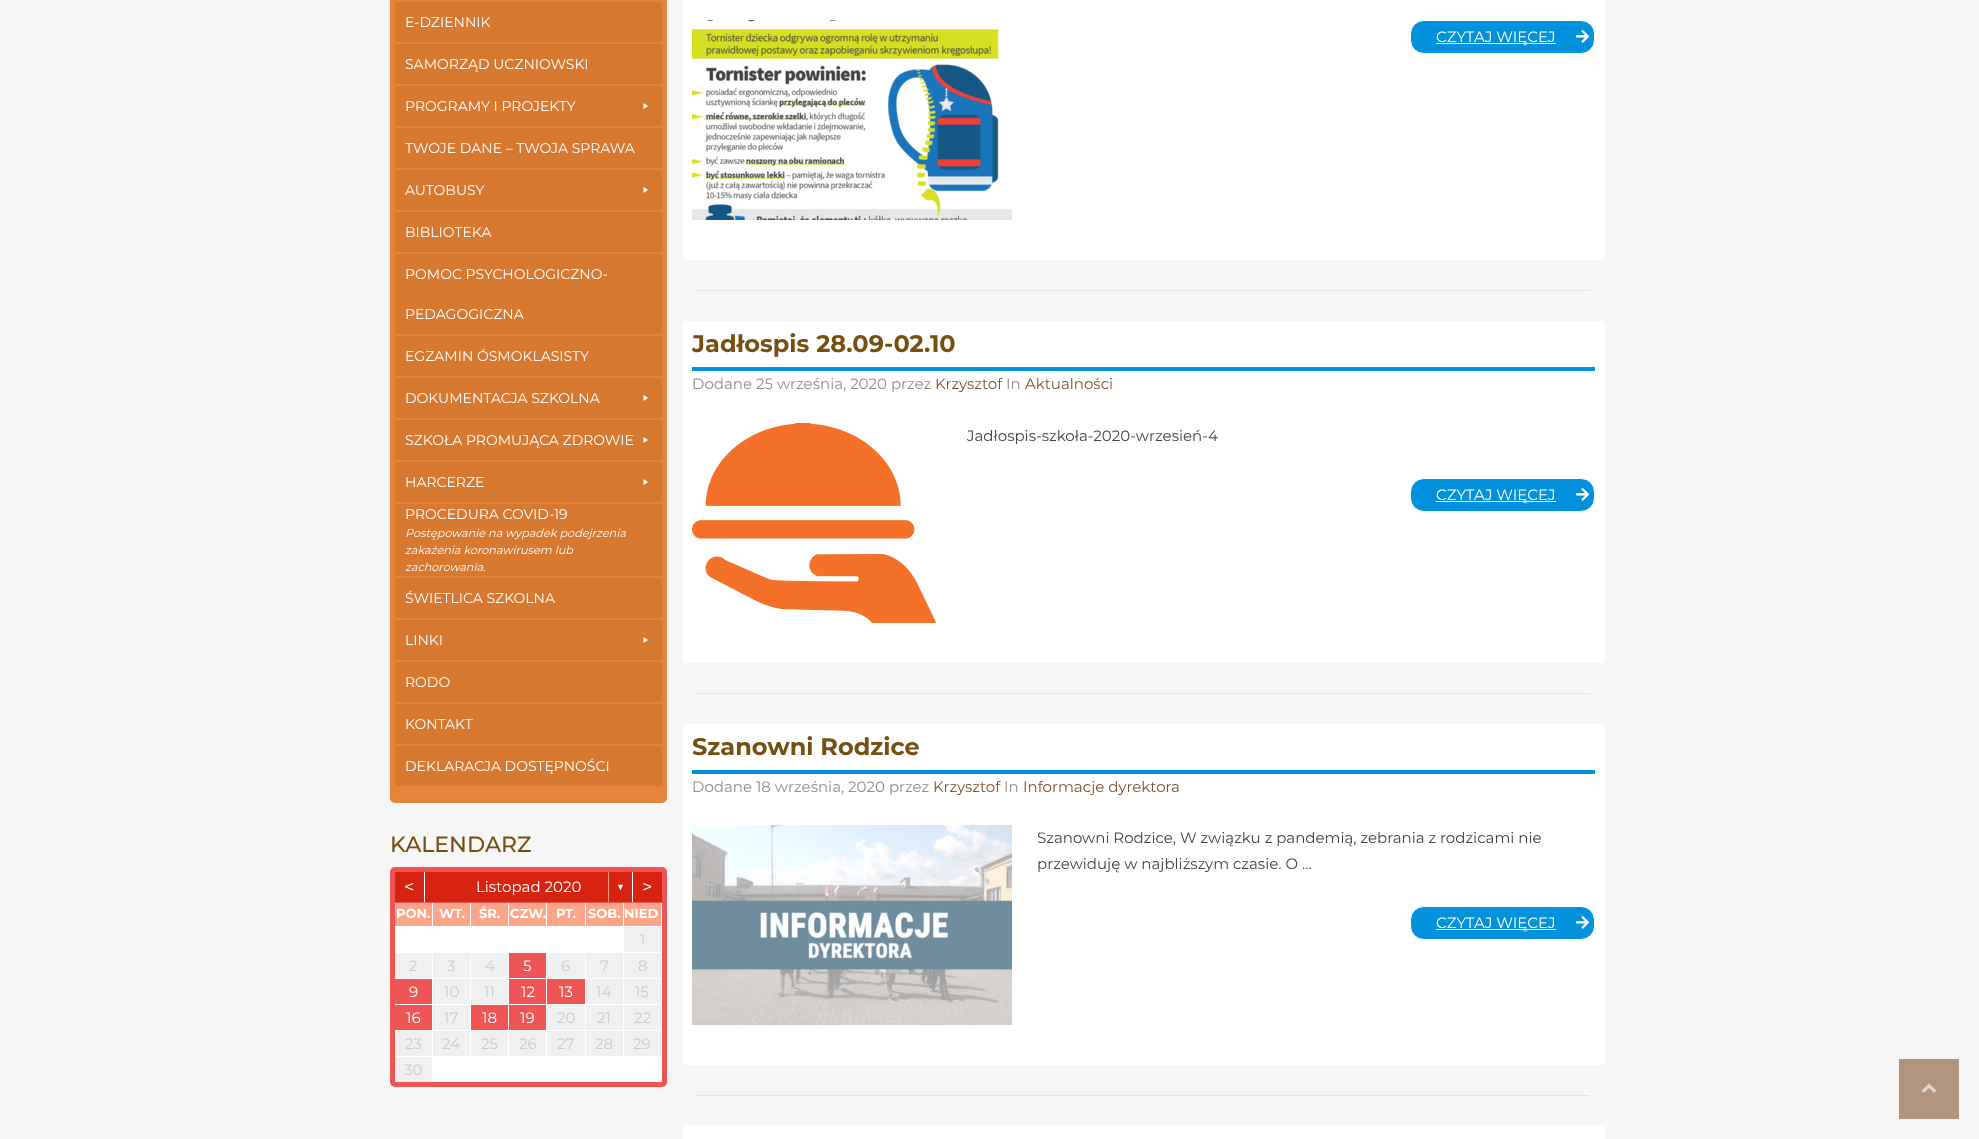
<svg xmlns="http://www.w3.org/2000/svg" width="1979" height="1139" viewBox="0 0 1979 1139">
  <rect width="100%" height="100%" fill="#f6f6f6"/>
  <rect x="390" y="-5" width="277" height="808" rx="5" fill="#e68439"/>
  <path d="M395 2h267v40H395z" fill="#d87931"/>
  <path d="M395 44h267v40H395z" fill="#d87931"/>
  <path d="M395 86h267v40H395z" fill="#d87931"/>
  <path d="M643.5 103L648 106L643.5 109Z" fill="#fff"/>
  <path d="M395 128h267v40H395z" fill="#d87931"/>
  <path d="M395 170h267v40H395z" fill="#d87931"/>
  <path d="M643.5 187L648 190L643.5 193Z" fill="#fff"/>
  <path d="M395 212h267v40H395z" fill="#d87931"/>
  <path d="M395 254h267v80H395z" fill="#d87931"/>
  <path d="M395 336h267v40H395z" fill="#d87931"/>
  <path d="M395 378h267v40H395z" fill="#d87931"/>
  <path d="M643.5 395L648 398L643.5 401Z" fill="#fff"/>
  <path d="M395 420h267v40H395z" fill="#d87931"/>
  <path d="M643.5 437L648 440L643.5 443Z" fill="#fff"/>
  <path d="M395 462h267v40H395z" fill="#d87931"/>
  <path d="M643.5 479L648 482L643.5 485Z" fill="#fff"/>
  <path d="M395 504h267v72H395z" fill="#d87931"/>
  <path d="M395 578h267v40H395z" fill="#d87931"/>
  <path d="M395 620h267v40H395z" fill="#d87931"/>
  <path d="M643.5 637L648 640L643.5 643Z" fill="#fff"/>
  <path d="M395 662h267v40H395z" fill="#d87931"/>
  <path d="M395 704h267v40H395z" fill="#d87931"/>
  <path d="M395 746h267v40H395z" fill="#d87931"/>
  <rect x="390" y="867" width="277" height="220" rx="5" fill="#ef5554"/>
  <path d="M395 872h267v30H395z" fill="#d72411"/>
  <path d="M424 872h1v30H424z" fill="#fff"/>
  <path d="M608 872h1v30H608z" fill="#ef9677"/>
  <path d="M632 872h1v30H632z" fill="#fff"/>
  <path d="M395 903h37v23H395z" fill="#fca588"/>
  <path d="M432 903h1v24H432z" fill="#fff"/>
  <path d="M395 926h38v1H395z" fill="#fff"/>
  <path d="M433 903h37v23H433z" fill="#fca588"/>
  <path d="M470 903h1v24H470z" fill="#fff"/>
  <path d="M433 926h38v1H433z" fill="#fff"/>
  <path d="M471 903h37v23H471z" fill="#fca588"/>
  <path d="M508 903h1v24H508z" fill="#fff"/>
  <path d="M471 926h38v1H471z" fill="#fff"/>
  <path d="M509 903h37v23H509z" fill="#fca588"/>
  <path d="M546 903h1v24H546z" fill="#fff"/>
  <path d="M509 926h38v1H509z" fill="#fff"/>
  <path d="M547 903h38v23H547z" fill="#fca588"/>
  <path d="M585 903h1v24H585z" fill="#fff"/>
  <path d="M547 926h39v1H547z" fill="#fff"/>
  <path d="M586 903h37v23H586z" fill="#fca588"/>
  <path d="M623 903h1v24H623z" fill="#fff"/>
  <path d="M586 926h38v1H586z" fill="#fff"/>
  <path d="M624 903h37v23H624z" fill="#fca588"/>
  <path d="M661 903h1v24H661z" fill="#fff"/>
  <path d="M624 926h38v1H624z" fill="#fff"/>
  <path d="M395 927h267v155H395z" fill="#fff"/>
  <path d="M624 927h37v25H624z" fill="#f0f0f0"/>
  <path d="M395 953h37v25H395z" fill="#f0f0f0"/>
  <path d="M433 953h37v25H433z" fill="#f0f0f0"/>
  <path d="M471 953h37v25H471z" fill="#f0f0f0"/>
  <path d="M509 953h37v25H509z" fill="#ef5554"/>
  <path d="M547 953h38v25H547z" fill="#f0f0f0"/>
  <path d="M586 953h37v25H586z" fill="#f0f0f0"/>
  <path d="M624 953h37v25H624z" fill="#f0f0f0"/>
  <path d="M395 979h37v25H395z" fill="#ef5554"/>
  <path d="M433 979h37v25H433z" fill="#f0f0f0"/>
  <path d="M471 979h37v25H471z" fill="#f0f0f0"/>
  <path d="M509 979h37v25H509z" fill="#ef5554"/>
  <path d="M547 979h38v25H547z" fill="#ef5554"/>
  <path d="M586 979h37v25H586z" fill="#f0f0f0"/>
  <path d="M624 979h37v25H624z" fill="#f0f0f0"/>
  <path d="M395 1005h37v25H395z" fill="#ef5554"/>
  <path d="M433 1005h37v25H433z" fill="#f0f0f0"/>
  <path d="M471 1005h37v25H471z" fill="#ef5554"/>
  <path d="M509 1005h37v25H509z" fill="#ef5554"/>
  <path d="M547 1005h38v25H547z" fill="#f0f0f0"/>
  <path d="M586 1005h37v25H586z" fill="#f0f0f0"/>
  <path d="M624 1005h37v25H624z" fill="#f0f0f0"/>
  <path d="M395 1031h37v25H395z" fill="#f0f0f0"/>
  <path d="M433 1031h37v25H433z" fill="#f0f0f0"/>
  <path d="M471 1031h37v25H471z" fill="#f0f0f0"/>
  <path d="M509 1031h37v25H509z" fill="#f0f0f0"/>
  <path d="M547 1031h38v25H547z" fill="#f0f0f0"/>
  <path d="M586 1031h37v25H586z" fill="#f0f0f0"/>
  <path d="M624 1031h37v25H624z" fill="#f0f0f0"/>
  <path d="M395 1057h37v25H395z" fill="#f0f0f0"/>
  <rect x="682" y="-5" width="923" height="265" rx="5" fill="#fff"/>
  <image x="692" y="20" width="320" height="200" href="img/1.png"/>
  <rect x="1410.5" y="20.5" width="184" height="33" rx="13.5" fill="#0291dd" stroke="#fff"/>
  <path d="M1436 43h120v1H1436z" fill="#fff"/>
  <image x="1576" y="30" width="14" height="13" href="img/2.png"/>
  <path d="M697 290h893v1H697z" fill="#e3e3e3"/>
  <rect x="682" y="321" width="923" height="342" rx="5" fill="#fff"/>
  <path d="M692 367h903v4H692z" fill="#0291dd"/>
  <image x="692" y="423" width="245" height="200" href="img/3.png"/>
  <rect x="1410.5" y="478.5" width="184" height="33" rx="13.5" fill="#0291dd" stroke="#fff"/>
  <path d="M1436 501h120v1H1436z" fill="#fff"/>
  <image x="1576" y="488" width="14" height="13" href="img/2.png"/>
  <path d="M697 693h893v1H697z" fill="#e3e3e3"/>
  <rect x="682" y="724" width="923" height="341" rx="5" fill="#fff"/>
  <path d="M692 770h903v4H692z" fill="#0291dd"/>
  <image x="692" y="825" width="320" height="200" href="img/4.png"/>
  <rect x="1410.5" y="906.5" width="184" height="33" rx="13.5" fill="#0291dd" stroke="#fff"/>
  <path d="M1436 929h120v1H1436z" fill="#fff"/>
  <image x="1576" y="916" width="14" height="13" href="img/2.png"/>
  <path d="M697 1095h893v1H697z" fill="#e3e3e3"/>
  <rect x="682" y="1126" width="923" height="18" rx="5" fill="#fff"/>
  <path d="M1899 1059h60v60H1899z" fill="#b2957f"/>
  <image x="1921" y="1083" width="16" height="10" href="img/5.png"/>
  <g font-family="Montserrat" font-size="14" fill="#fff">
    <text x="405" y="27">E-DZIENNIK</text>
    <text x="405" y="69">SAMORZĄD UCZNIOWSKI</text>
    <text x="405" y="111">PROGRAMY I PROJEKTY</text>
    <text x="405" y="153">TWOJE DANE – TWOJA SPRAWA</text>
    <text x="405" y="195">AUTOBUSY</text>
    <text x="405" y="237">BIBLIOTEKA</text>
    <text x="405" y="279">POMOC PSYCHOLOGICZNO-</text>
    <text x="405" y="319">PEDAGOGICZNA</text>
    <text x="405" y="361">EGZAMIN ÓSMOKLASISTY</text>
    <text x="405" y="403">DOKUMENTACJA SZKOLNA</text>
    <text x="405" y="445">SZKOŁA PROMUJĄCA ZDROWIE</text>
    <text x="405" y="487">HARCERZE</text>
    <text x="405" y="519">PROCEDURA COVID-19</text>
  </g>
  <g font-family="Montserrat" font-size="11.25" font-style="italic" fill="#fff">
    <text x="405" y="537">Postępowanie na wypadek podejrzenia</text>
    <text x="405" y="554">zakażenia koronawirusem lub</text>
    <text x="405" y="571">zachorowania.</text>
  </g>
  <g font-family="Montserrat" font-size="14" fill="#fff">
    <text x="405" y="603">ŚWIETLICA SZKOLNA</text>
    <text x="405" y="645">LINKI</text>
    <text x="405" y="687">RODO</text>
    <text x="405" y="729">KONTAKT</text>
    <text x="405" y="771">DEKLARACJA DOSTĘPNOŚCI</text>
  </g>
  <text x="390" y="852" font-family="Montserrat" font-size="22" font-weight="500" fill="#774f11">KALENDARZ</text>
  <text x="404" y="893" font-family="Montserrat" font-size="18" fill="#fff">&lt;</text>
  <text x="476" y="892" font-family="Montserrat" font-size="15" fill="#fff">Listopad 2020</text>
  <text x="616" y="890" font-family="Liberation Sans" font-size="9" fill="#fff">▼</text>
  <text x="642" y="893" font-family="Montserrat" font-size="18" fill="#fff">&gt;</text>
  <g font-family="Montserrat" font-size="13" font-weight="bold" fill="#fff">
    <text x="396" y="918">PON.</text>
    <text x="439" y="918">WT.</text>
    <text x="479" y="918">ŚR.</text>
    <text x="510" y="918">CZW.</text>
    <text x="556" y="918">PT.</text>
    <text x="588" y="918">SOB.</text>
    <text x="624" y="918">NIED</text>
  </g>
  <g font-family="Montserrat" font-size="15" fill="#ccc">
    <text x="640" y="945">1</text>
    <text x="409" y="971">2</text>
    <text x="447" y="971">3</text>
    <text x="485" y="971">4</text>
  </g>
  <text x="523" y="971" font-family="Montserrat" font-size="15" fill="#fff">5</text>
  <g font-family="Montserrat" font-size="15" fill="#ccc">
    <text x="561" y="971">6</text>
    <text x="600" y="971">7</text>
    <text x="638" y="971">8</text>
  </g>
  <text x="409" y="997" font-family="Montserrat" font-size="15" fill="#fff">9</text>
  <g font-family="Montserrat" font-size="15" fill="#ccc">
    <text x="444" y="997">10</text>
    <text x="484" y="997">11</text>
  </g>
  <g font-family="Montserrat" font-size="15" fill="#fff">
    <text x="521" y="997">12</text>
    <text x="559" y="997">13</text>
  </g>
  <g font-family="Montserrat" font-size="15" fill="#ccc">
    <text x="596" y="997">14</text>
    <text x="635" y="997">15</text>
  </g>
  <text x="406" y="1023" font-family="Montserrat" font-size="15" fill="#fff">16</text>
  <text x="444" y="1023" font-family="Montserrat" font-size="15" fill="#ccc">17</text>
  <g font-family="Montserrat" font-size="15" fill="#fff">
    <text x="482" y="1023">18</text>
    <text x="520" y="1023">19</text>
  </g>
  <g font-family="Montserrat" font-size="15" fill="#ccc">
    <text x="557" y="1023">20</text>
    <text x="597" y="1023">21</text>
    <text x="634" y="1023">22</text>
    <text x="405" y="1049">23</text>
    <text x="442" y="1049">24</text>
    <text x="481" y="1049">25</text>
    <text x="519" y="1049">26</text>
    <text x="557" y="1049">27</text>
    <text x="595" y="1049">28</text>
    <text x="633" y="1049">29</text>
    <text x="404" y="1075">30</text>
  </g>
  <text x="1436" y="42" font-family="Montserrat" font-size="15" fill="#fff">CZYTAJ WIĘCEJ</text>
  <text x="692" y="352" font-family="Montserrat" font-size="24" font-weight="bold" fill="#774f11">Jadłospis 28.09-02.10</text>
  <text x="692" y="389" font-family="Montserrat" font-size="15" fill="#8f8f8f">Dodane 25 września, 2020 przez</text>
  <text x="935" y="389" font-family="Montserrat" font-size="15" fill="#84542f">Krzysztof</text>
  <text x="1006" y="389" font-family="Montserrat" font-size="15" fill="#8f8f8f">In</text>
  <text x="1025" y="389" font-family="Montserrat" font-size="15" fill="#84542f">Aktualności</text>
  <text x="967" y="441" font-family="Montserrat" font-size="15" fill="#444">Jadłospis-szkoła-2020-wrzesień-4</text>
  <text x="1436" y="500" font-family="Montserrat" font-size="15" fill="#fff">CZYTAJ WIĘCEJ</text>
  <text x="692" y="755" font-family="Montserrat" font-size="24" font-weight="bold" fill="#774f11">Szanowni Rodzice</text>
  <text x="692" y="792" font-family="Montserrat" font-size="15" fill="#8f8f8f">Dodane 18 września, 2020 przez</text>
  <text x="933" y="792" font-family="Montserrat" font-size="15" fill="#84542f">Krzysztof</text>
  <text x="1004" y="792" font-family="Montserrat" font-size="15" fill="#8f8f8f">In</text>
  <text x="1023" y="792" font-family="Montserrat" font-size="15" fill="#84542f">Informacje dyrektora</text>
  <g font-family="Montserrat" font-size="15" fill="#444">
    <text x="1037" y="843">Szanowni Rodzice, W związku z pandemią, zebrania z rodzicami nie</text>
    <text x="1037" y="869">przewiduję w najbliższym czasie. O …</text>
  </g>
  <text x="1436" y="928" font-family="Montserrat" font-size="15" fill="#fff">CZYTAJ WIĘCEJ</text>
</svg>
